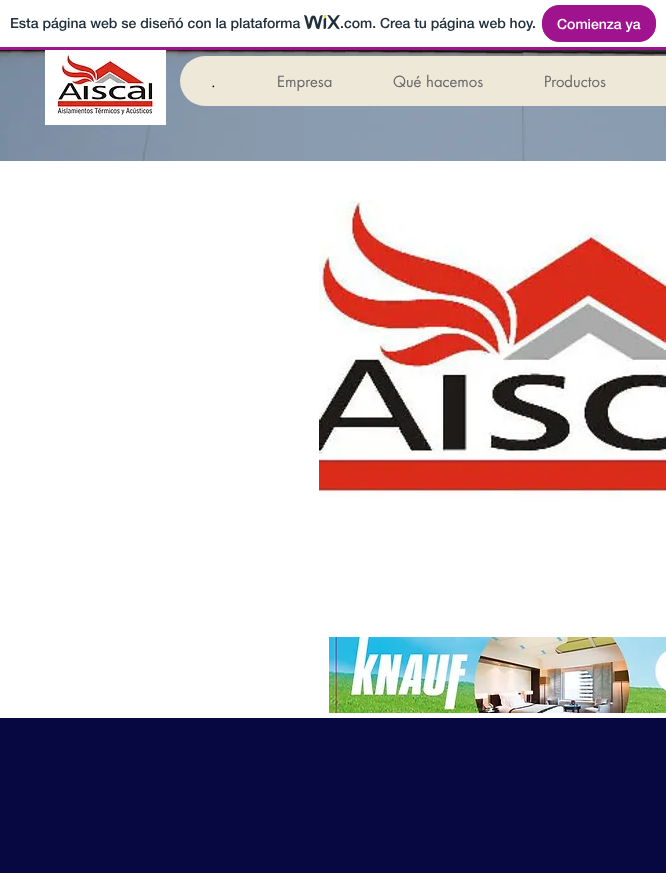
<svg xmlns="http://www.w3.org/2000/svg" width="666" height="873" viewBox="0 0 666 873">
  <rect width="100%" height="100%" fill="#fff"/>
  <path d="M0 47h666v3H0z" fill="#a0138e"/>
  <image x="304" y="15" width="36" height="15" href="img/1.png"/>
  <rect x="542.5" y="5.5" width="113" height="36" rx="16.5" fill="#a0138e" stroke="#a0138e"/>
  <image x="0" y="50" width="666" height="111" href="img/2.png"/>
  <image x="45" y="50" width="121" height="75" href="img/3.png"/>
  <rect x="180" y="56" width="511" height="50" rx="25" fill="#eee8d8"/>
  <image x="319" y="199" width="347" height="300" href="img/4.png"/>
  <image x="329" y="637" width="337" height="76" href="img/5.png"/>
  <path d="M0 718h666v155H0z" fill="#070842"/>
  <g font-family="'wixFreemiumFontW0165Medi'" font-size="14" font-weight="500" fill="#20303c">
    <text x="10" y="28">Esta página web se diseñó con la plataforma</text>
    <text x="340" y="28">.com. Crea tu página web hoy.</text>
  </g>
  <text x="557" y="29" font-family="'wixFreemiumFontW0165Medi'" font-size="14" font-weight="500" fill="#fff">Comienza ya</text>
  <text x="211" y="87" font-family="futura" font-size="15" fill="#000">.</text>
  <g font-family="futura" font-size="15" fill="#696969">
    <text x="277" y="87">Empresa</text>
    <text x="393" y="87">Qué hacemos</text>
    <text x="544" y="87">Productos</text>
  </g>
</svg>
